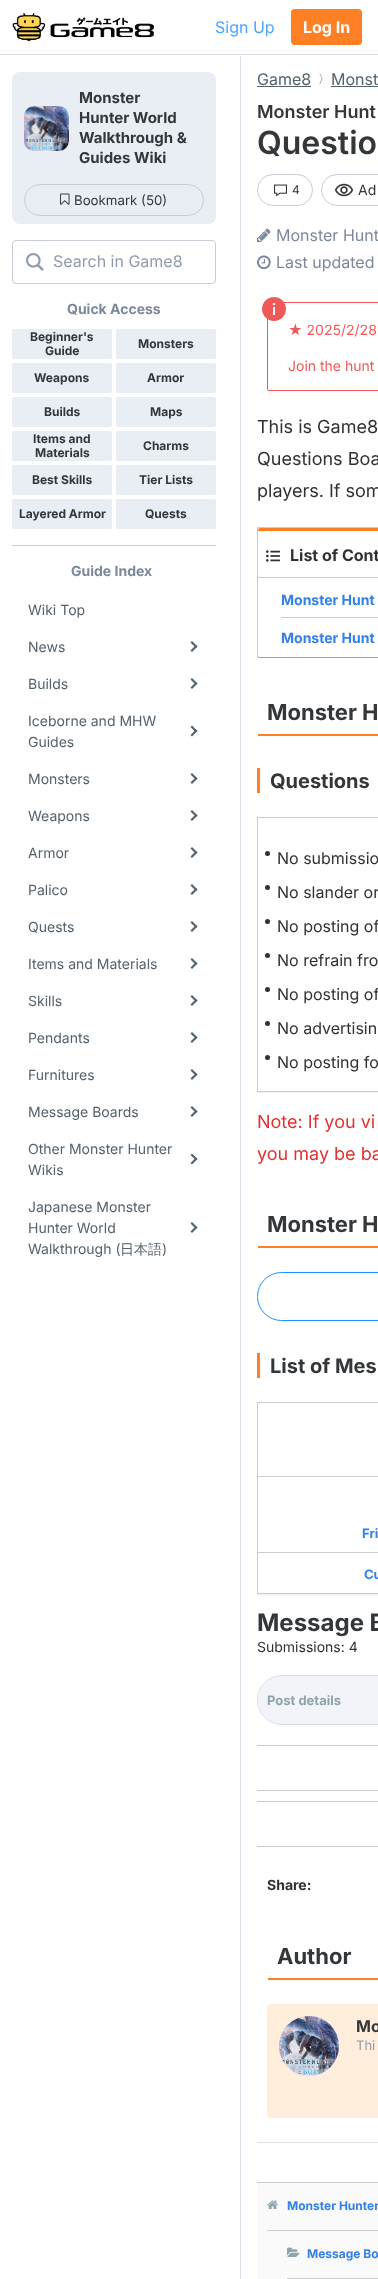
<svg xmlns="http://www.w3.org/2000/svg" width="378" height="2279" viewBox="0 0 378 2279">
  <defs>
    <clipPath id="clip1"><path d="M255 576H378V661H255ZM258 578H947V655C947 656 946 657 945 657H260C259 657 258 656 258 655Z" clip-rule="evenodd"/></clipPath>
    <clipPath id="clip2"><path d="M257 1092h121v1H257z"/></clipPath>
    <clipPath id="clip3"><path d="M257 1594h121v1H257z"/></clipPath>
  </defs>
  <rect width="100%" height="100%" fill="#fff"/>
  <path d="M0 54h378v1H0z" fill="#dbdfe7"/>
  <image x="12" y="12" width="142" height="30" href="img/1.png"/>
  <rect x="291" y="9" width="71" height="36" rx="4" fill="#ff8024"/>
  <rect x="12" y="72" width="204" height="152" rx="8" fill="#e9edf4"/>
  <image x="24" y="106" width="45" height="45" href="img/2.png"/>
  <rect x="24.5" y="184.5" width="179" height="31" rx="15.5" fill="none" stroke="#c9cdd5"/>
  <image x="60" y="193" width="10" height="12" href="img/3.png"/>
  <rect x="12.5" y="240.5" width="203" height="43" rx="3.5" fill="none" stroke="#c9cdd5"/>
  <image x="26" y="253" width="18" height="18" href="img/4.png"/>
  <path d="M12 545h204v1H12z" fill="#c9cdd5"/>
  <rect x="12" y="329" width="100" height="30" rx="2" fill="#e9edf4"/>
  <rect x="116" y="329" width="100" height="30" rx="2" fill="#e9edf4"/>
  <rect x="12" y="363" width="100" height="30" rx="2" fill="#e9edf4"/>
  <rect x="116" y="363" width="100" height="30" rx="2" fill="#e9edf4"/>
  <rect x="12" y="397" width="100" height="30" rx="2" fill="#e9edf4"/>
  <rect x="116" y="397" width="100" height="30" rx="2" fill="#e9edf4"/>
  <rect x="12" y="431" width="100" height="30" rx="2" fill="#e9edf4"/>
  <rect x="116" y="431" width="100" height="30" rx="2" fill="#e9edf4"/>
  <rect x="12" y="465" width="100" height="30" rx="2" fill="#e9edf4"/>
  <rect x="116" y="465" width="100" height="30" rx="2" fill="#e9edf4"/>
  <rect x="12" y="499" width="100" height="30" rx="2" fill="#e9edf4"/>
  <rect x="116" y="499" width="100" height="30" rx="2" fill="#e9edf4"/>
  <path d="M192 641L197.5 646.5L196 648L190.5 642.5Z" fill="#53626c"/>
  <path d="M196 645L197.5 646.5L192 652L190.5 650.5Z" fill="#53626c"/>
  <path d="M192 678L197.5 683.5L196 685L190.5 679.5Z" fill="#53626c"/>
  <path d="M196 682L197.5 683.5L192 689L190.5 687.5Z" fill="#53626c"/>
  <path d="M192 725.5L197.5 731L196 732.5L190.5 727Z" fill="#53626c"/>
  <path d="M196 729.5L197.5 731L192 736.5L190.5 735Z" fill="#53626c"/>
  <path d="M192 773L197.5 778.5L196 780L190.5 774.5Z" fill="#53626c"/>
  <path d="M196 777L197.5 778.5L192 784L190.5 782.5Z" fill="#53626c"/>
  <path d="M192 810L197.5 815.5L196 817L190.5 811.5Z" fill="#53626c"/>
  <path d="M196 814L197.5 815.5L192 821L190.5 819.5Z" fill="#53626c"/>
  <path d="M192 847L197.5 852.5L196 854L190.5 848.5Z" fill="#53626c"/>
  <path d="M196 851L197.5 852.5L192 858L190.5 856.5Z" fill="#53626c"/>
  <path d="M192 884L197.5 889.5L196 891L190.5 885.5Z" fill="#53626c"/>
  <path d="M196 888L197.5 889.5L192 895L190.5 893.5Z" fill="#53626c"/>
  <path d="M192 921L197.5 926.5L196 928L190.5 922.5Z" fill="#53626c"/>
  <path d="M196 925L197.5 926.5L192 932L190.5 930.5Z" fill="#53626c"/>
  <path d="M192 958L197.5 963.5L196 965L190.5 959.5Z" fill="#53626c"/>
  <path d="M196 962L197.5 963.5L192 969L190.5 967.5Z" fill="#53626c"/>
  <path d="M192 995L197.5 1000.5L196 1002L190.5 996.5Z" fill="#53626c"/>
  <path d="M196 999L197.5 1000.5L192 1006L190.5 1004.5Z" fill="#53626c"/>
  <path d="M192 1032L197.5 1037.5L196 1039L190.5 1033.5Z" fill="#53626c"/>
  <path d="M196 1036L197.5 1037.5L192 1043L190.5 1041.5Z" fill="#53626c"/>
  <path d="M192 1069L197.5 1074.5L196 1076L190.5 1070.5Z" fill="#53626c"/>
  <path d="M196 1073L197.5 1074.5L192 1080L190.5 1078.5Z" fill="#53626c"/>
  <path d="M192 1106L197.5 1111.5L196 1113L190.5 1107.5Z" fill="#53626c"/>
  <path d="M196 1110L197.5 1111.5L192 1117L190.5 1115.5Z" fill="#53626c"/>
  <path d="M192 1153.5L197.5 1159L196 1160.5L190.5 1155Z" fill="#53626c"/>
  <path d="M196 1157.5L197.5 1159L192 1164.5L190.5 1163Z" fill="#53626c"/>
  <path d="M192 1222L197.5 1227.5L196 1229L190.5 1223.5Z" fill="#53626c"/>
  <path d="M196 1226L197.5 1227.5L192 1233L190.5 1231.5Z" fill="#53626c"/>
  <path d="M240 56h1v2223H240z" fill="#dbdfe7"/>
  <path d="M257 86h54v1H257z" fill="#53626c"/>
  <path d="M331 86h47v1H331z" fill="#53626c"/>
  <rect x="257.5" y="174.5" width="55" height="31" rx="15.5" fill="none" stroke="#c9cdd5"/>
  <image x="274" y="184" width="13" height="13" href="img/5.png"/>
  <rect x="321.5" y="174.5" width="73" height="31" rx="15.5" fill="none" stroke="#c9cdd5"/>
  <image x="334" y="183" width="20" height="14" href="img/6.png"/>
  <image x="257" y="228" width="14" height="15" href="img/7.png"/>
  <image x="257" y="255" width="14" height="15" href="img/8.png"/>
  <rect x="267.5" y="302.5" width="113" height="88" rx="1.5" fill="none" stroke="#f15958"/>
  <image x="262" y="297" width="24" height="24" href="img/9.png"/>
  <path d="M257.5 527.5h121v130H257.5z" fill="none" stroke="#ccc"/>
  <path d="M260 528C258 528 258 530 258 531H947C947 530 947 528 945 528Z" fill="#ff8024"/>
  <path d="M258 577h120v1H258z" fill="#ccc"/>
  <image x="266" y="550" width="14" height="12" href="img/10.png"/>
  <g clip-path="url(#clip1)">
    <rect x="258" y="579" width="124" height="79" rx="2" fill="#00000033" filter="blur(0.5px)"/>
  </g>
  <path d="M281 617h97v1H281z" fill="#ccc"/>
  <path d="M258 734h120v2H258z" fill="#ff8024"/>
  <path d="M257 768h3v25H257z" fill="#ff8024"/>
  <g clip-path="url(#clip2)">
    <path d="M257 818h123v275H257z" fill="#0000000d" filter="blur(0.5px)"/>
  </g>
  <path d="M257 1091h121v1H257z" fill="#ccc"/>
  <path d="M257 817h121v1H257z" fill="#ccc"/>
  <path d="M257 817h1v275H257z" fill="#ccc"/>
  <circle cx="267.5" cy="853.5" r="2.5" fill="#313131"/>
  <circle cx="267.5" cy="887.5" r="2.5" fill="#313131"/>
  <circle cx="267.5" cy="921.5" r="2.5" fill="#313131"/>
  <circle cx="267.5" cy="955.5" r="2.5" fill="#313131"/>
  <circle cx="267.5" cy="989.5" r="2.5" fill="#313131"/>
  <circle cx="267.5" cy="1023.5" r="2.5" fill="#313131"/>
  <circle cx="267.5" cy="1057.5" r="2.5" fill="#313131"/>
  <path d="M258 1246h120v2H258z" fill="#ff8024"/>
  <rect x="257.5" y="1272.5" width="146" height="48" rx="24" fill="none" stroke="#1c90fc"/>
  <path d="M257 1353h3v25H257z" fill="#ff8024"/>
  <g clip-path="url(#clip3)">
    <path d="M257 1403h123v192H257z" fill="#0000000d" filter="blur(0.5px)"/>
  </g>
  <path d="M257 1593h121v1H257z" fill="#ccc"/>
  <path d="M257 1402h121v1H257z" fill="#ccc"/>
  <path d="M257 1476h121v1H257z" fill="#ccc"/>
  <path d="M257 1552h121v1H257z" fill="#ccc"/>
  <path d="M257 1552h1v42H257z" fill="#ccc"/>
  <path d="M257 1476h1v77H257z" fill="#ccc"/>
  <path d="M257 1402h1v75H257z" fill="#ccc"/>
  <rect x="257.5" y="1675.5" width="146" height="49" rx="24.5" fill="#f2f4fa" stroke="#dbdfe7"/>
  <path d="M257 1745h121v1H257z" fill="#ccc"/>
  <path d="M257 1790h121v1H257z" fill="#ccc"/>
  <path d="M257 1801h121v1H257z" fill="#ccc"/>
  <path d="M257 1846h121v1H257z" fill="#ccc"/>
  <path d="M268 1978h110v2H268z" fill="#ff8024"/>
  <rect x="267" y="2004" width="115" height="114" rx="4" fill="#ffeedb"/>
  <image x="279" y="2016" width="60" height="60" href="img/11.png"/>
  <path d="M257 2142h121v1H257z" fill="#dde4e6"/>
  <path d="M257 2183h121v96H257z" fill="#fafafa"/>
  <path d="M257 2182h121v1H257z" fill="#ccc"/>
  <path d="M267 2230h111v1H267z" fill="#ccc"/>
  <image x="267" y="2200" width="11" height="9" href="img/12.png"/>
  <path d="M287 2278h91v1H287z" fill="#ccc"/>
  <image x="287" y="2247" width="13" height="10" href="img/13.png"/>
  <text x="215" y="33" font-family="Inter" font-size="16" fill="#47a7ff">Sign Up</text>
  <text x="303" y="33" font-family="Inter" font-size="16" font-weight="bold" fill="#fff">Log In</text>
  <g font-family="Inter" font-size="15" font-weight="bold" fill="#343739">
    <text x="79" y="103">Monster</text>
    <text x="79" y="123">Hunter World</text>
    <text x="79" y="143">Walkthrough &amp;</text>
    <text x="79" y="163">Guides Wiki</text>
  </g>
  <text x="74" y="205" font-family="Inter" font-size="13.25" fill="#343739">Bookmark (50)</text>
  <text x="53" y="267" font-family="Inter" font-size="16" fill="#909cae">Search in Game8</text>
  <text x="67" y="314" font-family="Inter" font-size="14" font-weight="bold" fill="#7c889b">Quick Access</text>
  <g font-family="Inter" font-size="12" font-weight="bold" fill="#343739">
    <text x="30" y="341">Beginner's</text>
    <text x="45" y="355">Guide</text>
    <text x="138" y="348">Monsters</text>
    <text x="34" y="382">Weapons</text>
    <text x="147" y="382">Armor</text>
    <text x="44" y="416">Builds</text>
    <text x="150" y="416">Maps</text>
    <text x="33" y="443">Items and</text>
    <text x="35" y="457">Materials</text>
    <text x="143" y="450">Charms</text>
    <text x="32" y="484">Best Skills</text>
    <text x="139" y="484">Tier Lists</text>
    <text x="19" y="518">Layered Armor</text>
    <text x="145" y="518">Quests</text>
  </g>
  <text x="71" y="576" font-family="Inter" font-size="14" font-weight="bold" fill="#7c889b">Guide Index</text>
  <g font-family="Inter" font-size="14" fill="#53626c">
    <text x="28" y="615">Wiki Top</text>
    <text x="28" y="652">News</text>
    <text x="28" y="689">Builds</text>
    <text x="28" y="726">Iceborne and MHW</text>
    <text x="28" y="747">Guides</text>
    <text x="28" y="784">Monsters</text>
    <text x="28" y="821">Weapons</text>
    <text x="28" y="858">Armor</text>
    <text x="28" y="895">Palico</text>
    <text x="28" y="932">Quests</text>
    <text x="28" y="969">Items and Materials</text>
    <text x="28" y="1006">Skills</text>
    <text x="28" y="1043">Pendants</text>
    <text x="28" y="1080">Furnitures</text>
    <text x="28" y="1117">Message Boards</text>
    <text x="28" y="1154">Other Monster Hunter</text>
    <text x="28" y="1175">Wikis</text>
    <text x="28" y="1212">Japanese Monster</text>
    <text x="28" y="1233">Hunter World</text>
    <text x="28" y="1254">Walkthrough (</text>
  </g>
  <text x="120" y="1254" font-family="WenQuanYi Zen Hei" font-size="14" font-weight="500" fill="#53626c">日本語</text>
  <text x="162" y="1254" font-family="Inter" font-size="14" fill="#53626c">)</text>
  <text x="257" y="85" font-family="Inter" font-size="16" fill="#53626c">Game8</text>
  <text x="318" y="83" font-family="WenQuanYi Zen Hei" font-size="12" font-weight="500" fill="#53626c">〉</text>
  <text x="331" y="85" font-family="Inter" font-size="16" fill="#53626c">Monst</text>
  <text x="257" y="118" font-family="Inter" font-size="18" font-weight="600" fill="#343739">Monster Hunt</text>
  <text x="257" y="154" font-family="Inter" font-size="32" font-weight="600" fill="#343739">Questio</text>
  <text x="292" y="194" font-family="Inter" font-size="12" fill="#343739">4</text>
  <text x="358" y="195" font-family="Inter" font-size="14" fill="#343739">Ad</text>
  <g font-family="Inter" font-size="16" fill="#7c889b">
    <text x="276" y="241">Monster Hunt</text>
    <text x="276" y="268">Last updated</text>
  </g>
  <g font-family="Inter" font-size="14" fill="#f15958">
    <text x="288" y="335">★ 2025/2/28</text>
    <text x="288" y="371">Join the hunt</text>
  </g>
  <g font-family="Inter" font-size="18" fill="#313131">
    <text x="257" y="433">This is Game8</text>
    <text x="257" y="465">Questions Boa</text>
    <text x="257" y="497">players. If som</text>
  </g>
  <text x="290" y="561" font-family="Inter" font-size="16" font-weight="bold" fill="#313131">List of Cont</text>
  <g font-family="Inter" font-size="14" font-weight="bold" fill="#3381e8">
    <text x="281" y="605">Monster Hunt</text>
    <text x="281" y="643">Monster Hunt</text>
  </g>
  <text x="267" y="720" font-family="Inter" font-size="22" font-weight="bold" fill="#343739">Monster H</text>
  <text x="270" y="788" font-family="Inter" font-size="20" font-weight="bold" fill="#343739">Questions</text>
  <g font-family="Inter" font-size="16" fill="#313131">
    <text x="277" y="864">No submissio</text>
    <text x="277" y="898">No slander or</text>
    <text x="277" y="932">No posting of</text>
    <text x="277" y="966">No refrain fro</text>
    <text x="277" y="1000">No posting of</text>
    <text x="277" y="1034">No advertisin</text>
    <text x="277" y="1068">No posting fo</text>
  </g>
  <g font-family="Inter" font-size="18" fill="#e13131">
    <text x="257" y="1128">Note: If you vi</text>
    <text x="257" y="1160">you may be ba</text>
  </g>
  <text x="267" y="1232" font-family="Inter" font-size="22" font-weight="bold" fill="#343739">Monster H</text>
  <text x="270" y="1373" font-family="Inter" font-size="20" font-weight="bold" fill="#343739">List of Mes</text>
  <g font-family="Inter" font-size="13" font-weight="bold" fill="#3381e8">
    <text x="362" y="1538">Fri</text>
    <text x="364" y="1579">Cu</text>
  </g>
  <text x="257" y="1631" font-family="Inter" font-size="24" font-weight="bold" fill="#343739">Message B</text>
  <text x="257" y="1652" font-family="Inter" font-size="14" fill="#313131">Submissions: 4</text>
  <text x="267" y="1705" font-family="Inter" font-size="13" font-weight="bold" fill="#90a4ae">Post details</text>
  <text x="267" y="1890" font-family="Inter" font-size="14" font-weight="bold" fill="#313131">Share:</text>
  <text x="277" y="1964" font-family="Inter" font-size="22" font-weight="bold" fill="#343739">Author</text>
  <text x="356" y="2032" font-family="Inter" font-size="16" font-weight="bold" fill="#343739">Mo</text>
  <text x="356" y="2050" font-family="Inter" font-size="13" fill="#909cae">Thi</text>
  <g font-family="Inter" font-size="12" font-weight="bold" fill="#3381e8">
    <text x="287" y="2210">Monster Hunter</text>
    <text x="307" y="2258">Message Bo</text>
  </g>
</svg>
